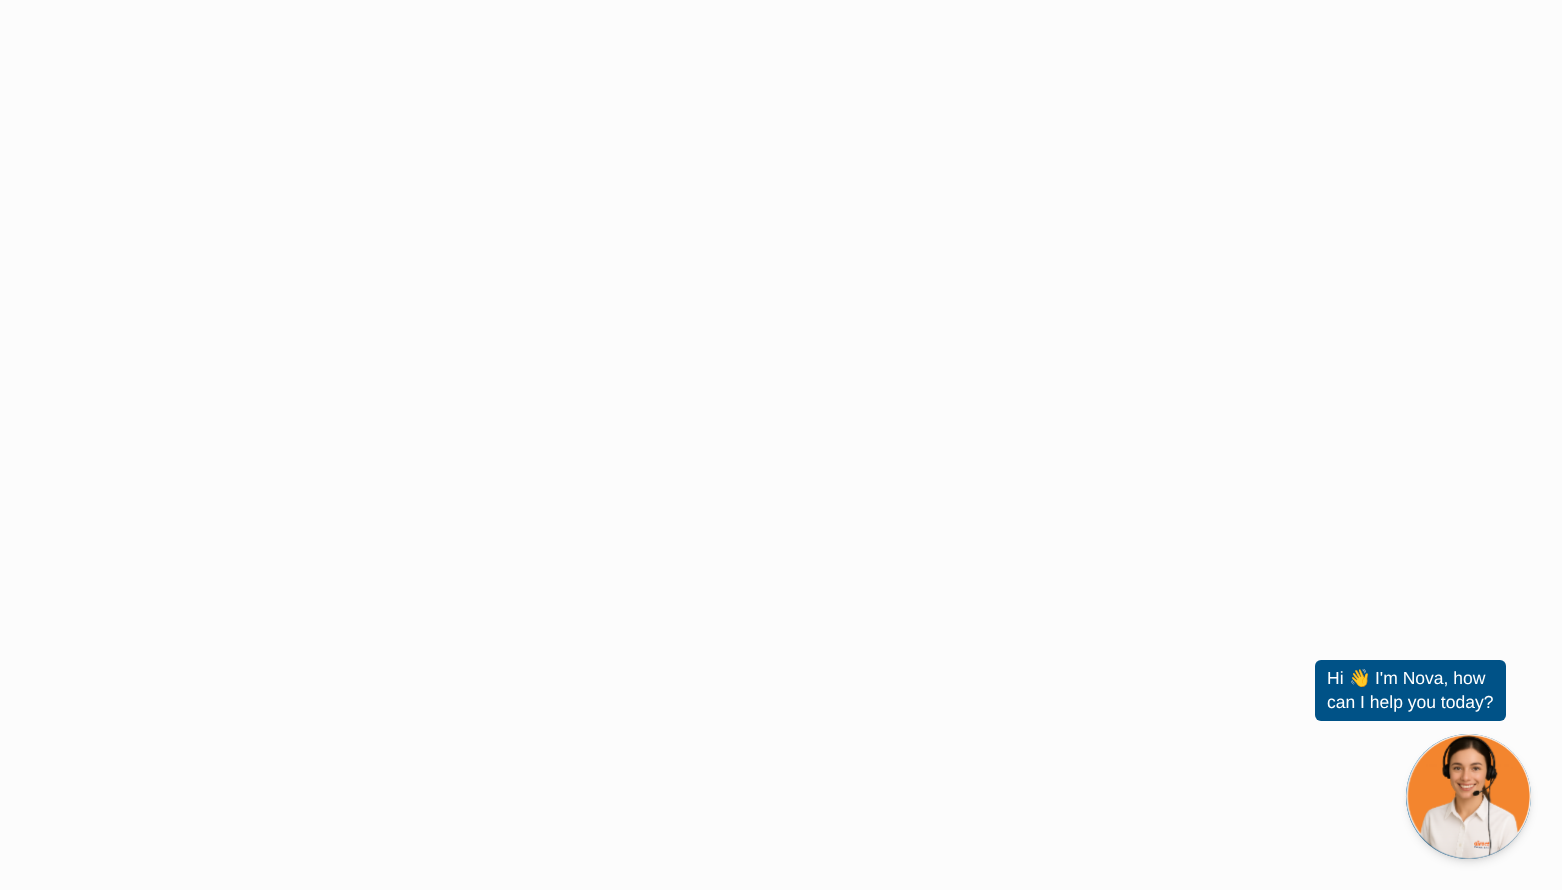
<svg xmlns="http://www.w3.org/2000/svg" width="1562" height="890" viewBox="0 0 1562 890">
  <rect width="100%" height="100%" fill="#fcfcfc"/>
  <rect x="1315" y="660" width="191" height="61" rx="6" fill="#005287"/>
  <rect x="1409" y="739" width="120" height="120" rx="60" fill="#0000001a" filter="blur(2.5px)"/>
  <rect x="1408" y="740" width="122" height="123" rx="61" fill="#0000001a" filter="blur(4px)"/>
  <circle cx="1468.5" cy="796.5" r="62.5" fill="#005287"/>
  <image x="1406" y="734" width="125" height="125" href="img/1.png"/>
  <text x="1327" y="684" font-family="Liberation Sans" font-size="17.5" fill="#fff">Hi</text>
  <text x="1349" y="684" font-family="Noto Color Emoji" font-size="17.5" fill="#fff">👋</text>
  <g font-family="Liberation Sans" font-size="17.5" fill="#fff">
    <text x="1375" y="684">I'm Nova, how</text>
    <text x="1327" y="708">can I help you today?</text>
  </g>
</svg>
